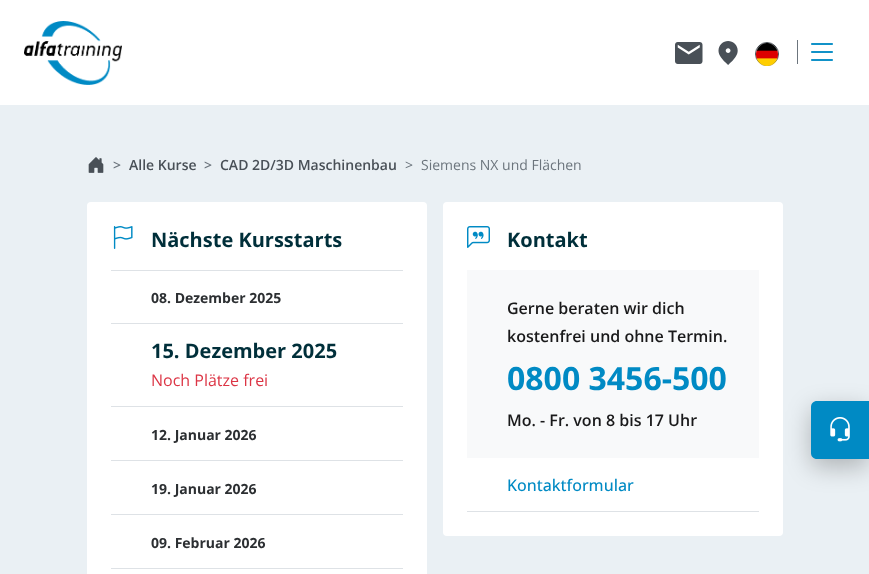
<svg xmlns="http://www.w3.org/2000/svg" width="869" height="574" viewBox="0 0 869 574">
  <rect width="100%" height="100%" fill="#eaf0f4"/>
  <path d="M0 0h869v105H0z" fill="#fff"/>
  <image x="24" y="21" width="98" height="64" href="img/1.png"/>
  <image x="675" y="42" width="28" height="22" href="img/2.png"/>
  <image x="718" y="41" width="20" height="24" href="img/3.png"/>
  <circle cx="767" cy="54" r="11.5" fill="none" stroke="#495057"/>
  <image x="756" y="43" width="22" height="23" href="img/4.png"/>
  <path d="M797 40h1v24H797z" fill="#6c757d"/>
  <image x="811" y="43" width="22" height="18" href="img/5.png"/>
  <image x="88" y="157" width="16" height="16" href="img/6.png"/>
  <rect x="87" y="202" width="340" height="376" rx="4" fill="#fff"/>
  <image x="113" y="226" width="20" height="23" href="img/7.png"/>
  <path d="M111 270h292v1H111z" fill="#dee2e6"/>
  <path d="M111 323h292v1H111z" fill="#dee2e6"/>
  <path d="M111 406h292v1H111z" fill="#dee2e6"/>
  <path d="M111 460h292v1H111z" fill="#dee2e6"/>
  <path d="M111 514h292v1H111z" fill="#dee2e6"/>
  <path d="M111 568h292v1H111z" fill="#dee2e6"/>
  <rect x="443" y="202" width="340" height="334" rx="4" fill="#fff"/>
  <image x="467" y="226" width="23" height="22" href="img/8.png"/>
  <path d="M467 270h292v188H467z" fill="#f8f9fa"/>
  <path d="M467 511h292v1H467z" fill="#dee2e6"/>
  <rect x="811" y="409" width="58" height="58" rx="6" fill="#00000040" filter="blur(12px)"/>
  <path d="M817 401H869V459H817C813.5 459 811 456.5 811 453V407C811 403.5 813.5 401 817 401Z" fill="#008ac4"/>
  <image x="830" y="417" width="20" height="25" href="img/9.png"/>
  <text x="113" y="170" font-family="Open Sans" font-size="14" font-weight="600" fill="#6c757d">&gt;</text>
  <text x="129" y="170" font-family="Open Sans" font-size="14" font-weight="600" fill="#495057">Alle Kurse</text>
  <text x="204" y="170" font-family="Open Sans" font-size="14" font-weight="600" fill="#6c757d">&gt;</text>
  <text x="220" y="170" font-family="Open Sans" font-size="14" font-weight="600" fill="#495057">CAD 2D/3D Maschinenbau</text>
  <g font-family="Open Sans" font-size="14" fill="#6c757d">
    <text x="405" y="170">&gt;</text>
    <text x="421" y="170">Siemens NX und Flächen</text>
  </g>
  <text x="151" y="247" font-family="Open Sans" font-size="20" font-weight="bold" fill="#002f3a">Nächste Kursstarts</text>
  <text x="151" y="303" font-family="Open Sans" font-size="14" font-weight="bold" fill="#2c2f32">08. Dezember 2025</text>
  <text x="151" y="358" font-family="Open Sans" font-size="20" font-weight="bold" fill="#002f3a">15. Dezember 2025</text>
  <text x="151" y="386" font-family="Open Sans" font-size="16" fill="#dc3545">Noch Plätze frei</text>
  <g font-family="Open Sans" font-size="14" font-weight="bold" fill="#2c2f32">
    <text x="151" y="440">12. Januar 2026</text>
    <text x="151" y="494">19. Januar 2026</text>
    <text x="151" y="548">09. Februar 2026</text>
  </g>
  <text x="507" y="247" font-family="Open Sans" font-size="20" font-weight="bold" fill="#002f3a">Kontakt</text>
  <g font-family="Open Sans" font-size="16" font-weight="600" fill="#19191a">
    <text x="507" y="314">Gerne beraten wir dich</text>
    <text x="507" y="342">kostenfrei und ohne Termin.</text>
  </g>
  <text x="507" y="390" font-family="Open Sans" font-size="32" font-weight="bold" fill="#008ac4">0800 3456-500</text>
  <text x="507" y="426" font-family="Open Sans" font-size="16" font-weight="600" fill="#19191a">Mo. - Fr. von 8 bis 17 Uhr</text>
  <text x="507" y="491" font-family="Open Sans" font-size="16" font-weight="500" fill="#008ac4">Kontaktformular</text>
</svg>
